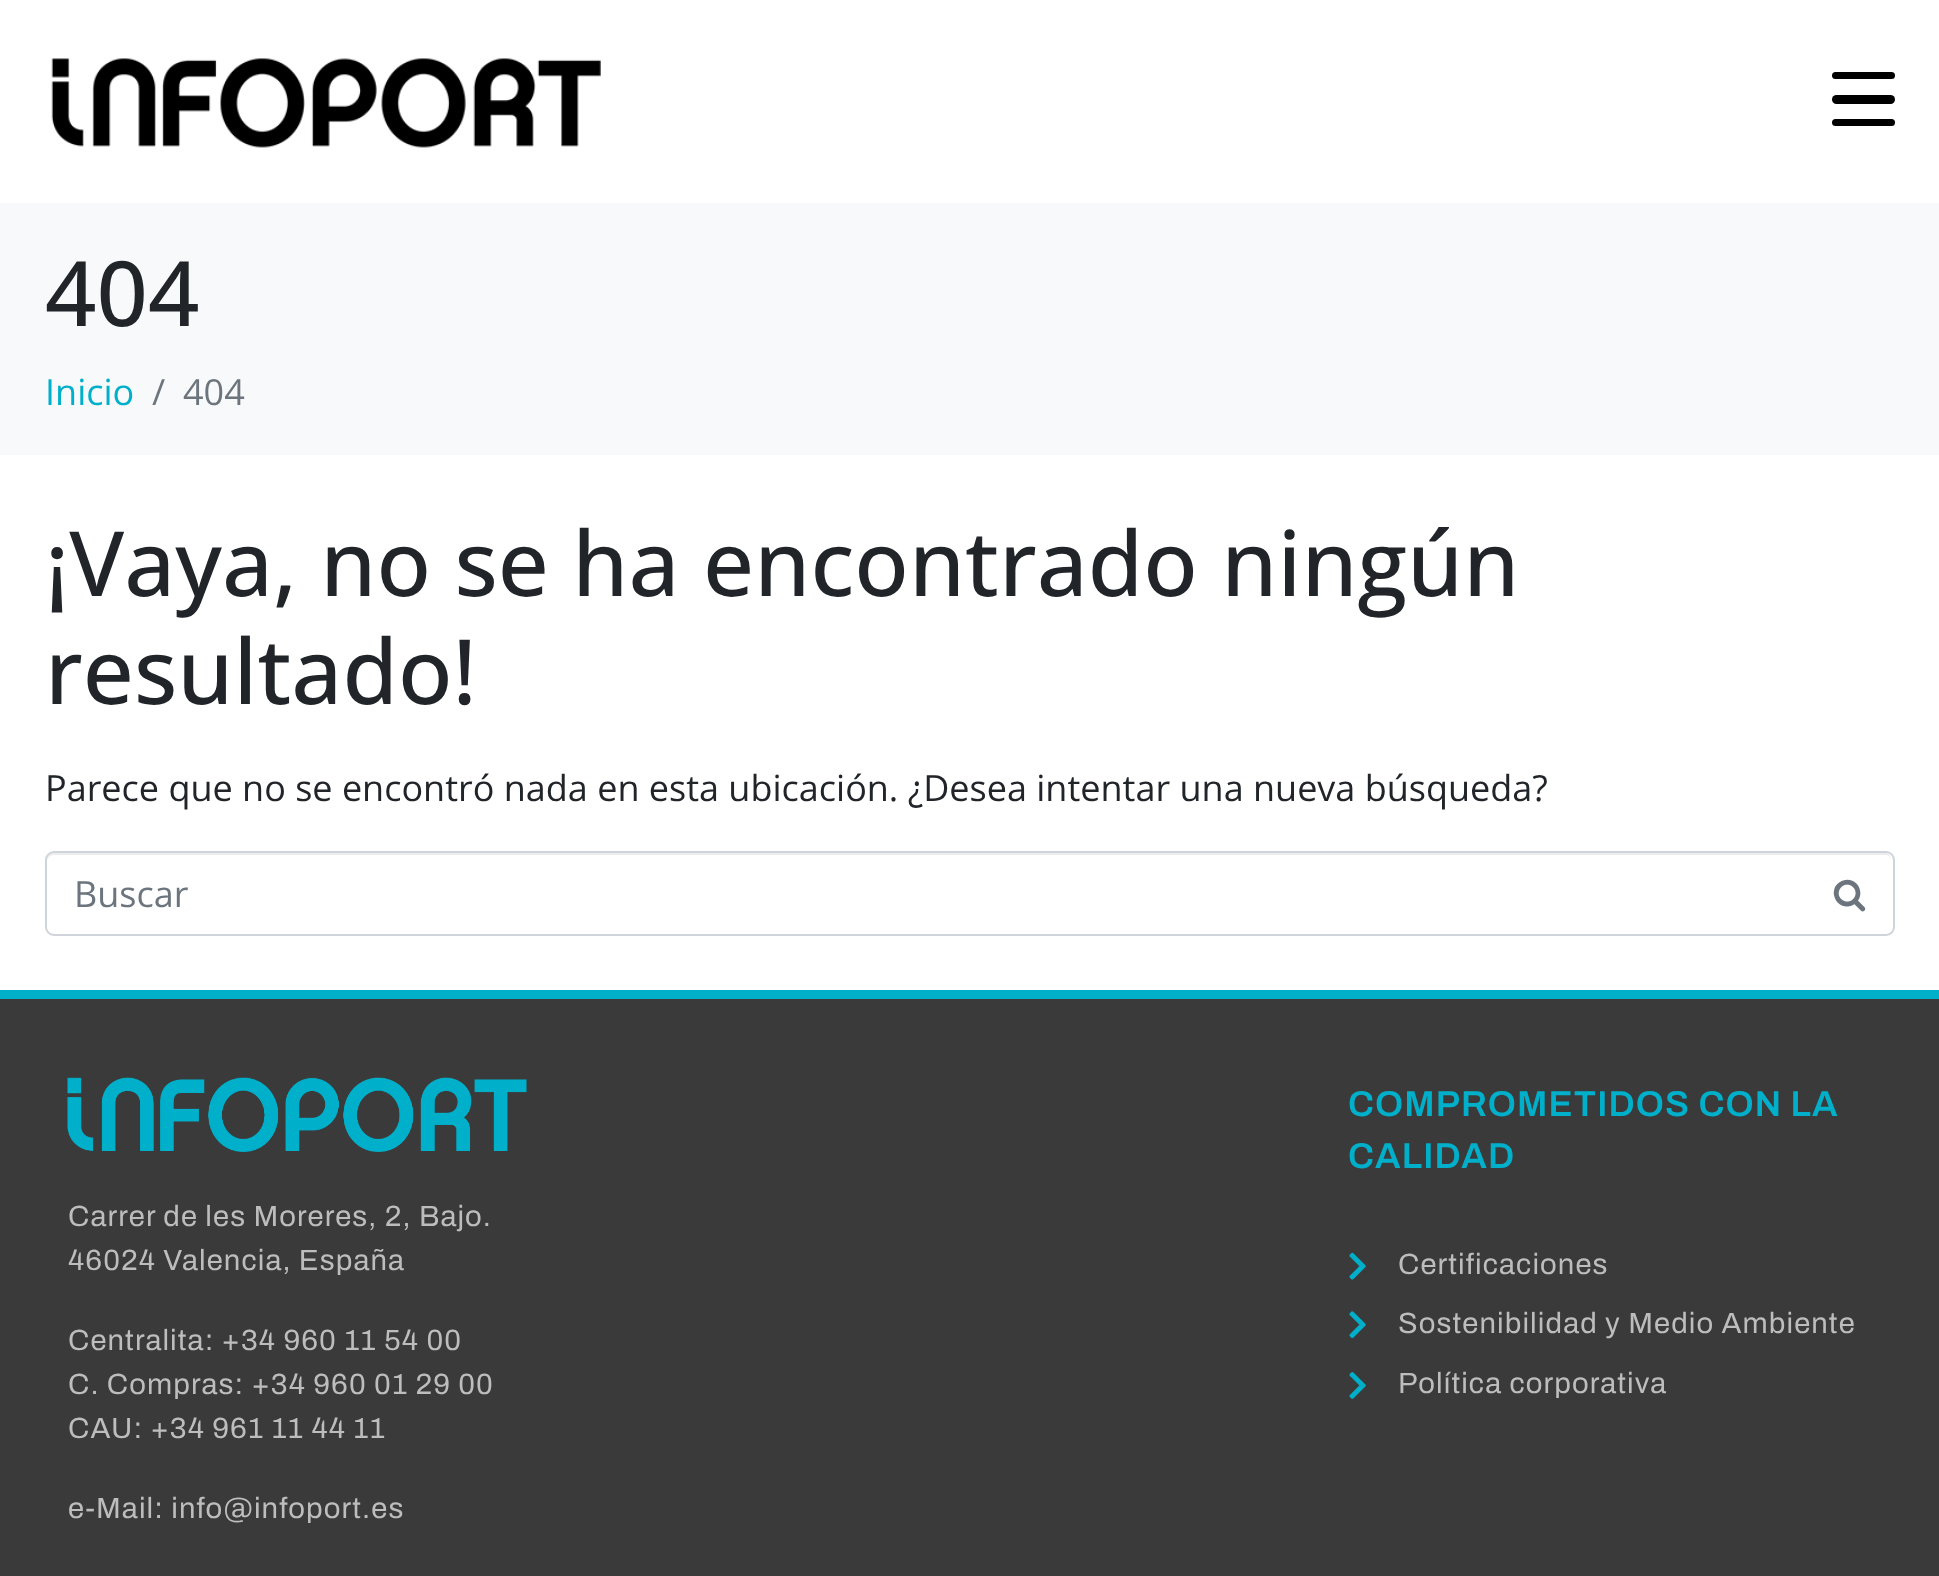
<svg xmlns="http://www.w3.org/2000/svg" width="1939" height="1576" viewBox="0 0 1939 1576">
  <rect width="100%" height="100%" fill="#fff"/>
  <image x="51" y="58" width="550" height="90" href="img/1.png"/>
  <rect x="1832" y="95" width="63" height="9" rx="4.5" fill="#000"/>
  <rect x="1832" y="72" width="63" height="7" rx="3.5" fill="#000"/>
  <rect x="1832" y="119" width="63" height="7" rx="3.5" fill="#000"/>
  <path d="M0 203h1939v252H0z" fill="#f8f9fa"/>
  <path d="M54 855H1886C1889 855 1892 858 1892 862C1892 858 1890 853 1885 853H54C49 853 47 858 47 862C47 858 50 855 54 855Z" fill="#ececec"/>
  <rect x="46" y="852" width="1848" height="83" rx="8" fill="none" stroke="#ced4da" stroke-width="2"/>
  <image x="1833" y="879" width="33" height="33" href="img/2.png"/>
  <path d="M0 999h1939v577H0z" fill="#3a3a3a"/>
  <path d="M0 990h1939v9H0z" fill="#00b0ca"/>
  <image x="67" y="1077" width="460" height="75" href="img/3.png"/>
  <image x="1349" y="1252" width="17" height="28" href="img/4.png"/>
  <image x="1349" y="1311" width="17" height="28" href="img/5.png"/>
  <image x="1349" y="1372" width="17" height="27" href="img/6.png"/>
  <text x="45" y="326" font-family="Open Sans" font-size="90" font-weight="500" fill="#212529">404</text>
  <text x="45" y="405" font-family="Open Sans" font-size="36" fill="#00b0ca">Inicio</text>
  <g font-family="Open Sans" font-size="36" fill="#6c757d">
    <text x="152" y="405">/</text>
    <text x="183" y="405">404</text>
  </g>
  <g font-family="Open Sans" font-size="90" font-weight="500" fill="#212529">
    <text x="45" y="596">¡Vaya, no se ha encontrado ningún</text>
    <text x="45" y="704">resultado!</text>
  </g>
  <text x="45" y="801" font-family="Open Sans" font-size="36" fill="#212529">Parece que no se encontró nada en esta ubicación. ¿Desea intentar una nueva búsqueda?</text>
  <text x="74" y="907" font-family="Open Sans" font-size="36" fill="#6c757d">Buscar</text>
  <g font-family="Archivo" font-size="29.25" letter-spacing="1.1" fill="#bdbdbd">
    <text x="68" y="1226">Carrer de les Moreres, 2, Bajo.</text>
    <text x="68" y="1270">46024 Valencia, España</text>
    <text x="68" y="1350">Centralita: +34 960 11 54 00</text>
    <text x="68" y="1394">C. Compras: +34 960 01 29 00</text>
    <text x="68" y="1438">CAU: +34 961 11 44 11</text>
    <text x="68" y="1518">e-Mail: info@infoport.es</text>
  </g>
  <g font-family="Archivo" font-size="36" font-weight="600" letter-spacing="1.1" fill="#00b0ca">
    <text x="1348" y="1116">COMPROMETIDOS CON LA</text>
    <text x="1348" y="1168">CALIDAD</text>
  </g>
  <g font-family="Archivo" font-size="29.25" letter-spacing="1.1" fill="#bdbdbd">
    <text x="1398" y="1274">Certificaciones</text>
    <text x="1398" y="1333">Sostenibilidad y Medio Ambiente</text>
    <text x="1398" y="1393">Política corporativa</text>
  </g>
</svg>
